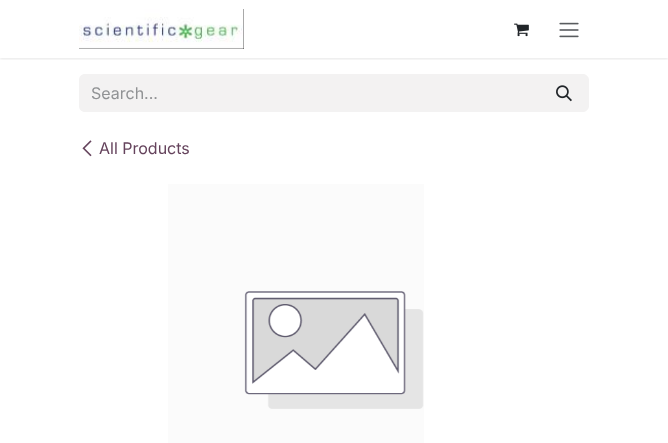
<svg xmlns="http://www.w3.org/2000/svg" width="668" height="443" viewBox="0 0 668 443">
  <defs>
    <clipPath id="clip1"><path d="M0 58h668v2H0z"/></clipPath>
  </defs>
  <rect width="100%" height="100%" fill="#fff"/>
  <g clip-path="url(#clip1)">
    <path d="M0 1h668v58H0z" fill="#0000001a" filter="blur(1.5px)"/>
  </g>
  <image x="79" y="9" width="165" height="40" href="img/1.png"/>
  <image x="514" y="23" width="15" height="14" href="img/2.png"/>
  <image x="559" y="22" width="20" height="16" href="img/3.png"/>
  <path d="M85 74H540V112H85C81.5 112 79 109.5 79 106V80C79 76.5 81.5 74 85 74Z" fill="#f3f2f2"/>
  <path d="M539.5 74.5H583C586 74.5 588.5 77 588.5 80V106C588.5 109 586 111.5 583 111.5H539.5Z" fill="#f3f2f2" stroke="#f3f2f2"/>
  <image x="556" y="85" width="16" height="17" href="img/4.png"/>
  <image x="82" y="140" width="10" height="17" href="img/5.png"/>
  <image x="168" y="184" width="256" height="259" href="img/6.png"/>
  <text x="91" y="99" font-family="Inter" font-size="16" fill="#909294">Search...</text>
  <text x="99" y="154" font-family="Inter" font-size="16" fill="#65435c">All Products</text>
</svg>
